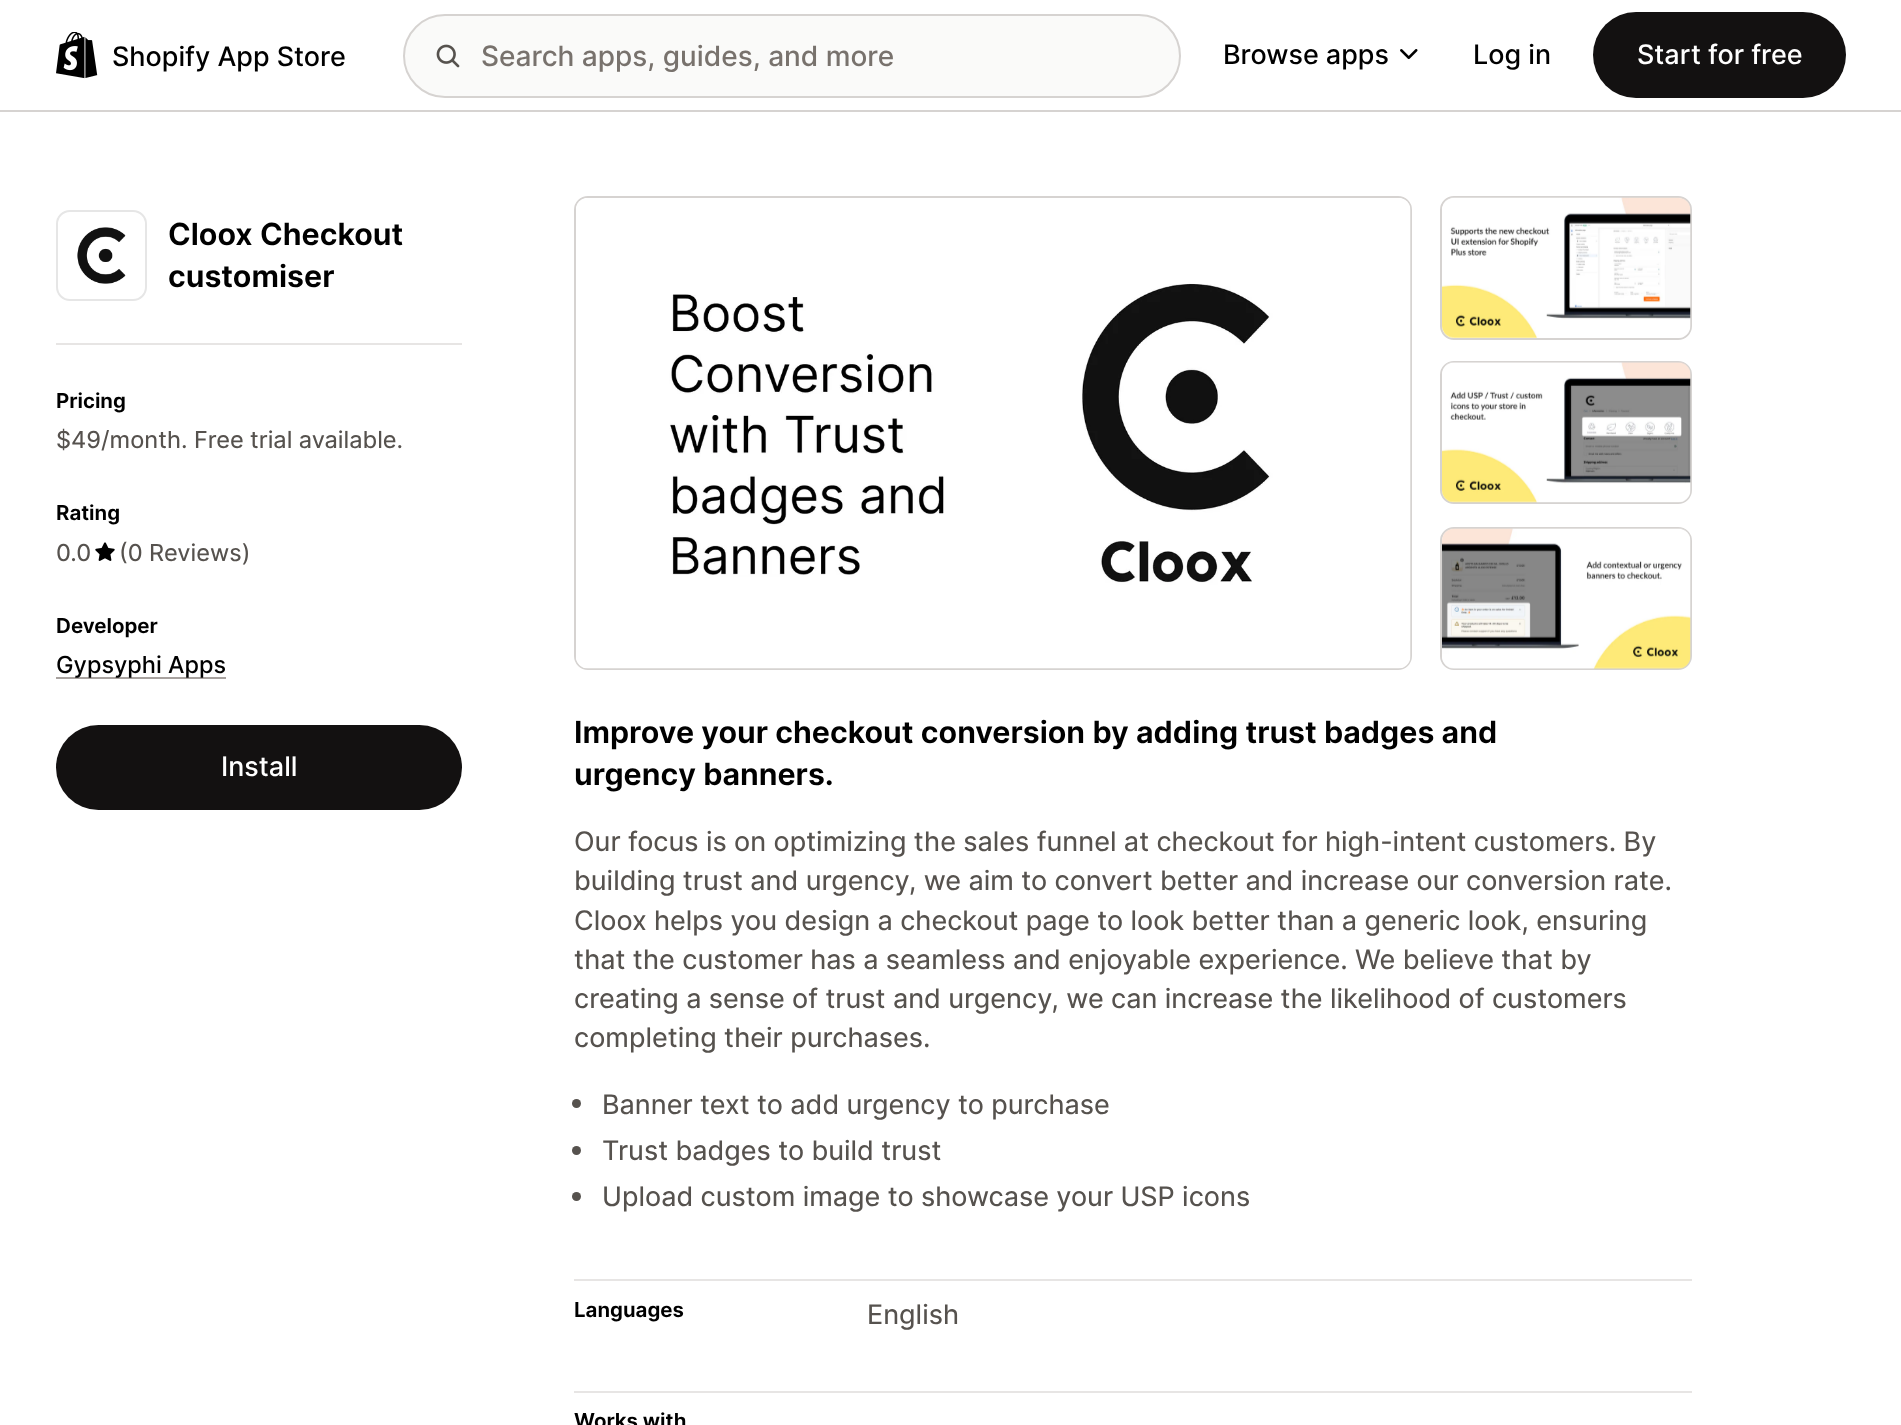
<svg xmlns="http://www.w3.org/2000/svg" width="1901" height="1425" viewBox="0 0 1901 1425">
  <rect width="100%" height="100%" fill="#fff"/>
  <path d="M0 110h1901v2H0z" fill="#d6d3d1"/>
  <image x="56" y="32" width="42" height="47" href="img/1.png"/>
  <rect x="404" y="15" width="776" height="82" rx="41" fill="#fafaf9" stroke="#d6d3d1" stroke-width="2"/>
  <image x="436" y="44" width="24" height="24" href="img/2.png"/>
  <image x="1400" y="49" width="18" height="11" href="img/3.png"/>
  <rect x="1593" y="12" width="253" height="86" rx="43" fill="#131111"/>
  <image x="77" y="227" width="49" height="57" href="img/4.png"/>
  <rect x="57" y="211" width="89" height="89" rx="13" fill="none" stroke="#e6e6e6" stroke-width="2"/>
  <path d="M56 343h406v2H56z" fill="#e7e5e4"/>
  <image x="95" y="542" width="20" height="19" href="img/5.png"/>
  <path d="M56 677h170v2H56z" fill="#a8a29f"/>
  <rect x="56" y="725" width="406" height="85" rx="42.5" fill="#131111"/>
  <rect x="575" y="197" width="836" height="472" rx="13" fill="none" stroke="#d6d3d1" stroke-width="2"/>
  <image x="576" y="198" width="835" height="471" href="img/6.png"/>
  <rect x="1441" y="197" width="250" height="142" rx="13" fill="none" stroke="#d6d3d1" stroke-width="2"/>
  <image x="1442" y="197" width="249" height="141" href="img/7.png"/>
  <rect x="1441" y="362" width="250" height="141" rx="13" fill="none" stroke="#d6d3d1" stroke-width="2"/>
  <image x="1442" y="362" width="249" height="141" href="img/8.png"/>
  <rect x="1441" y="528" width="250" height="141" rx="13" fill="none" stroke="#d6d3d1" stroke-width="2"/>
  <image x="1442" y="528" width="249" height="141" href="img/9.png"/>
  <circle cx="576.5" cy="1103.5" r="4.5" fill="#56524e"/>
  <circle cx="576.5" cy="1150.5" r="4.5" fill="#56524e"/>
  <circle cx="576.5" cy="1196.5" r="4.5" fill="#56524e"/>
  <path d="M574 1279h1118v2H574z" fill="#e7e5e4"/>
  <path d="M574 1391h1118v2H574z" fill="#e7e5e4"/>
  <text x="112" y="66" font-family="Inter" font-size="26.95" font-weight="500" fill="#000">Shopify App Store</text>
  <text x="481" y="66" font-family="Inter" font-size="28" font-weight="500" fill="#78726d">Search apps, guides, and more</text>
  <g font-family="Inter" font-size="26.95" font-weight="500" fill="#000">
    <text x="1223" y="64">Browse apps</text>
    <text x="1473" y="64">Log in</text>
  </g>
  <text x="1637" y="64" font-family="Inter" font-size="26.95" font-weight="500" fill="#fff">Start for free</text>
  <g font-family="Inter" font-size="30.45" font-weight="600" fill="#000">
    <text x="168" y="245">Cloox Checkout</text>
    <text x="168" y="287">customiser</text>
  </g>
  <text x="56" y="408" font-family="Inter" font-size="20.5" font-weight="600" fill="#000">Pricing</text>
  <text x="56" y="448" font-family="Inter" font-size="23.5" fill="#56524e">$49/month. Free trial available.</text>
  <text x="56" y="520" font-family="Inter" font-size="20.5" font-weight="600" fill="#000">Rating</text>
  <g font-family="Inter" font-size="23.5" fill="#56524e">
    <text x="56" y="561">0.0</text>
    <text x="119" y="561">(0 Reviews)</text>
  </g>
  <text x="56" y="633" font-family="Inter" font-size="20.5" font-weight="600" fill="#000">Developer</text>
  <text x="56" y="673" font-family="Inter" font-size="23.5" font-weight="500" fill="#000">Gypsyphi Apps</text>
  <text x="221" y="776" font-family="Inter" font-size="26.95" font-weight="500" fill="#fff">Install</text>
  <g font-family="Inter" font-size="30.45" font-weight="600" fill="#000">
    <text x="574" y="743">Improve your checkout conversion by adding trust badges and</text>
    <text x="574" y="785">urgency banners.</text>
  </g>
  <g font-family="Inter" font-size="26.95" fill="#56524e">
    <text x="574" y="851">Our focus is on optimizing the sales funnel at checkout for high-intent customers. By</text>
    <text x="574" y="890">building trust and urgency, we aim to convert better and increase our conversion rate.</text>
    <text x="574" y="930">Cloox helps you design a checkout page to look better than a generic look, ensuring</text>
    <text x="574" y="969">that the customer has a seamless and enjoyable experience. We believe that by</text>
    <text x="574" y="1008">creating a sense of trust and urgency, we can increase the likelihood of customers</text>
    <text x="574" y="1047">completing their purchases.</text>
    <text x="602" y="1114">Banner text to add urgency to purchase</text>
    <text x="602" y="1160">Trust badges to build trust</text>
    <text x="602" y="1206">Upload custom image to showcase your USP icons</text>
  </g>
  <text x="574" y="1317" font-family="Inter" font-size="20.5" font-weight="600" fill="#000">Languages</text>
  <text x="867" y="1324" font-family="Inter" font-size="26.95" fill="#56524e">English</text>
  <text x="574" y="1428" font-family="Inter" font-size="20.5" font-weight="600" fill="#000">Works with</text>
</svg>
